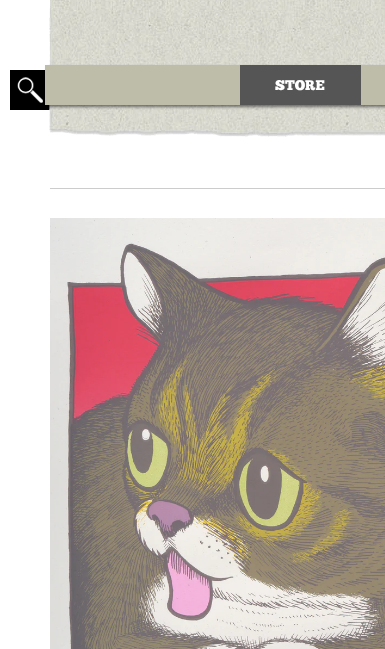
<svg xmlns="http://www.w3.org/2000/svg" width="385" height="649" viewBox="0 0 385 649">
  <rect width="100%" height="100%" fill="#fff"/>
  <path d="M10 70h40v40H10z" fill="#000"/>
  <image x="17" y="77" width="26" height="26" href="img/1.png"/>
  <image x="49" y="0" width="336" height="137" href="img/2.png"/>
  <path d="M47 67h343v40H47z" fill="#00000080" filter="blur(1.5px)"/>
  <path d="M45 65h340v40H45z" fill="#bebda9"/>
  <path d="M240 65h121v40H240z" fill="#555"/>
  <path d="M50 188h335v1H50z" fill="#ccc"/>
  <image x="50" y="218" width="335" height="431" href="img/3.png"/>
  <text x="275" y="90" font-family="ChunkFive" font-size="14" fill="#fff">STORE</text>
</svg>
